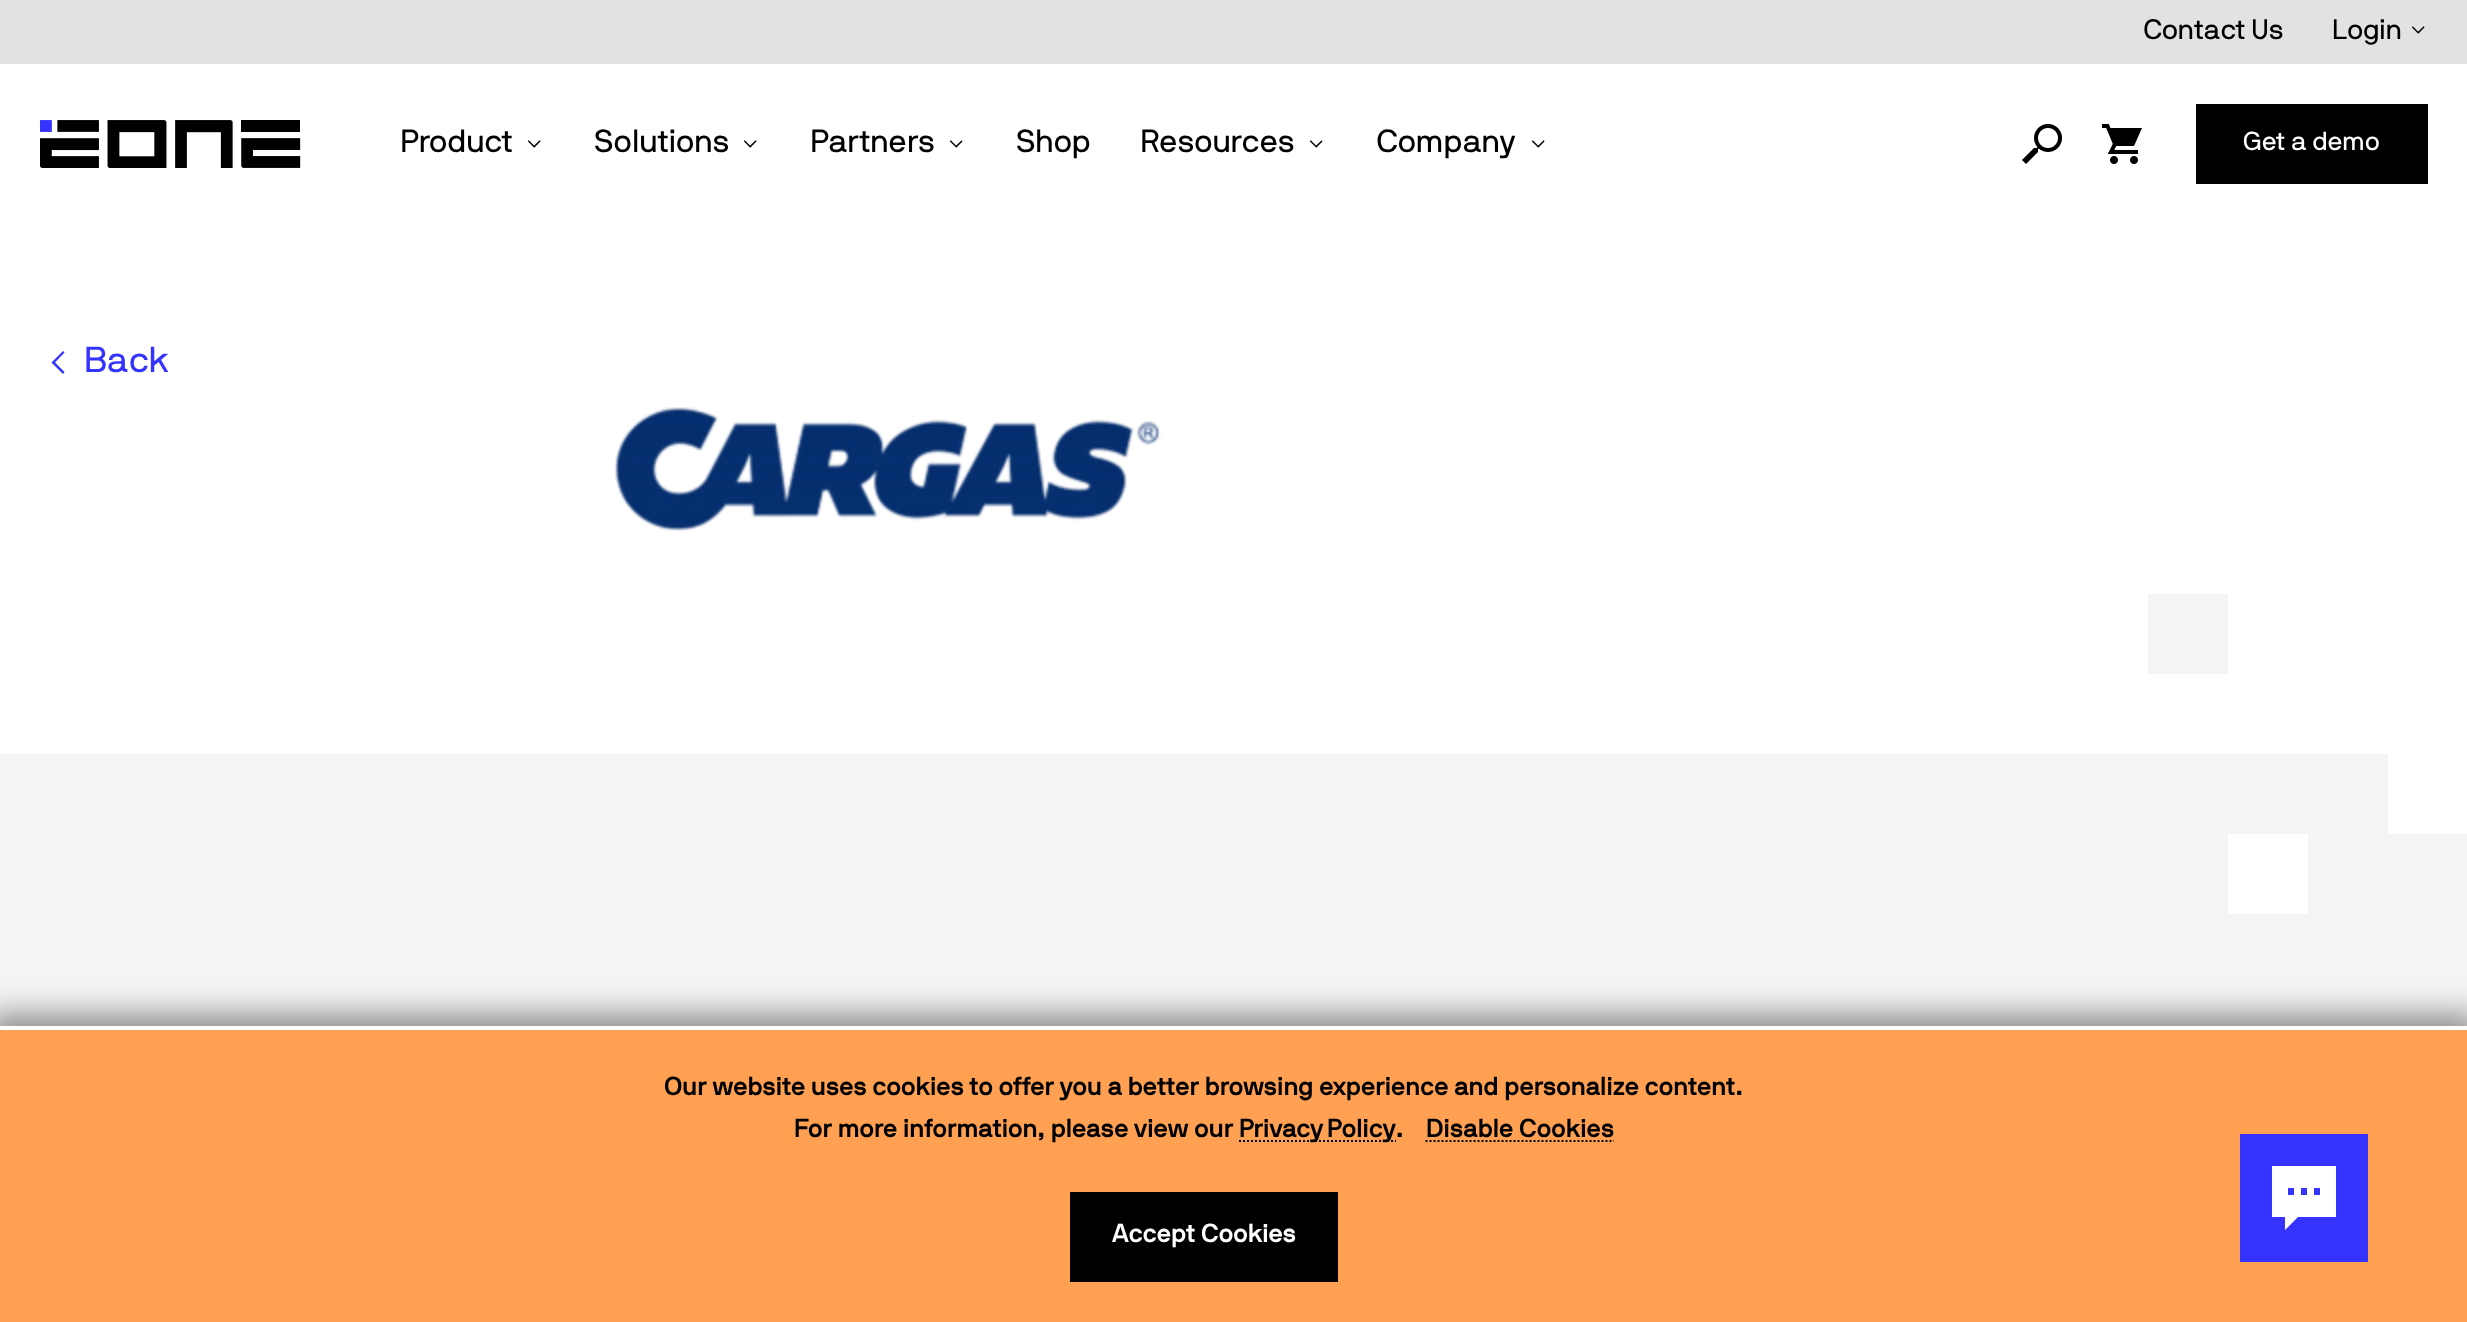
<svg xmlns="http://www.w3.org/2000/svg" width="2467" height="1322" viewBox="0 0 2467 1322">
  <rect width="100%" height="100%" fill="#fff"/>
  <path d="M0 0h2467v64H0z" fill="#e2e2e4"/>
  <image x="2411" y="26" width="14" height="8" href="img/1.png"/>
  <image x="40" y="120" width="261" height="48" href="img/2.png"/>
  <image x="527" y="140" width="14" height="8" href="img/3.png"/>
  <image x="743" y="140" width="14" height="8" href="img/3.png"/>
  <image x="949" y="140" width="14" height="8" href="img/3.png"/>
  <image x="1309" y="140" width="14" height="8" href="img/3.png"/>
  <image x="1531" y="140" width="14" height="8" href="img/3.png"/>
  <image x="2022" y="124" width="40" height="40" href="img/4.png"/>
  <image x="2102" y="124" width="40" height="40" href="img/5.png"/>
  <path d="M2196 104h232v80H2196z" fill="#000"/>
  <path d="M63 351L64.5 352.5L55 362.5L64.5 372L63 374L51.5 362.5Z" fill="#3533ff"/>
  <image x="614" y="407" width="547" height="124" href="img/6.png"/>
  <path d="M0 754h2467v272H0z" fill="#f4f4f4"/>
  <path d="M2148 594h80v80H2148z" fill="#f4f4f4"/>
  <path d="M2388 754h79v80H2388z" fill="#fff"/>
  <path d="M2228 834h80v80H2228z" fill="#fff"/>
  <path d="M-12 1014h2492v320H-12z" fill="#4a4a4a99" filter="blur(15px)"/>
  <path d="M0 1030h2467v292H0z" fill="#ffa052"/>
  <path d="M0 1026h2467v4H0z" fill="#fff"/>
  <path d="M1239 1141H1396" fill="none" stroke="#000" stroke-width="2" stroke-dasharray="2 2"/>
  <path d="M1425.5 1141H1614" fill="none" stroke="#000" stroke-width="2" stroke-dasharray="2 2"/>
  <path d="M1070 1192h268v90H1070z" fill="#000"/>
  <path d="M2240 1134h128v128H2240z" fill="#3533ff"/>
  <path d="M2272 1166V1217H2285V1230L2298 1217H2336V1166ZM2288 1188H2294V1195H2288ZM2301 1188H2307V1195H2301ZM2314 1188H2320V1195H2314Z" fill="#fff"/>
  <g font-family="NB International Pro" font-size="28" fill="#000">
    <text x="2143" y="39">Contact Us</text>
    <text x="2332" y="39">Login</text>
  </g>
  <g font-family="NB International Pro" font-size="32" fill="#000">
    <text x="400" y="152">Product</text>
    <text x="594" y="152">Solutions</text>
    <text x="810" y="152">Partners</text>
    <text x="1016" y="152">Shop</text>
    <text x="1140" y="152">Resources</text>
    <text x="1376" y="152">Company</text>
  </g>
  <text x="2243" y="150" font-family="NB International Pro" font-size="26" fill="#fff">Get a demo</text>
  <text x="84" y="372" font-family="NB International Pro" font-size="36" fill="#3533ff">Back</text>
  <g font-family="NB International Pro" font-size="26" font-weight="bold" fill="#000">
    <text x="664" y="1095">Our website uses cookies to offer you a better browsing experience and personalize content.</text>
    <text x="794" y="1137">For more information, please view our</text>
    <text x="1239" y="1137" word-spacing="-2">Privacy Policy</text>
    <text x="1396" y="1137">.</text>
    <text x="1426" y="1137">Disable Cookies</text>
  </g>
  <text x="1112" y="1242" font-family="NB International Pro" font-size="26" font-weight="bold" fill="#fff">Accept Cookies</text>
</svg>
